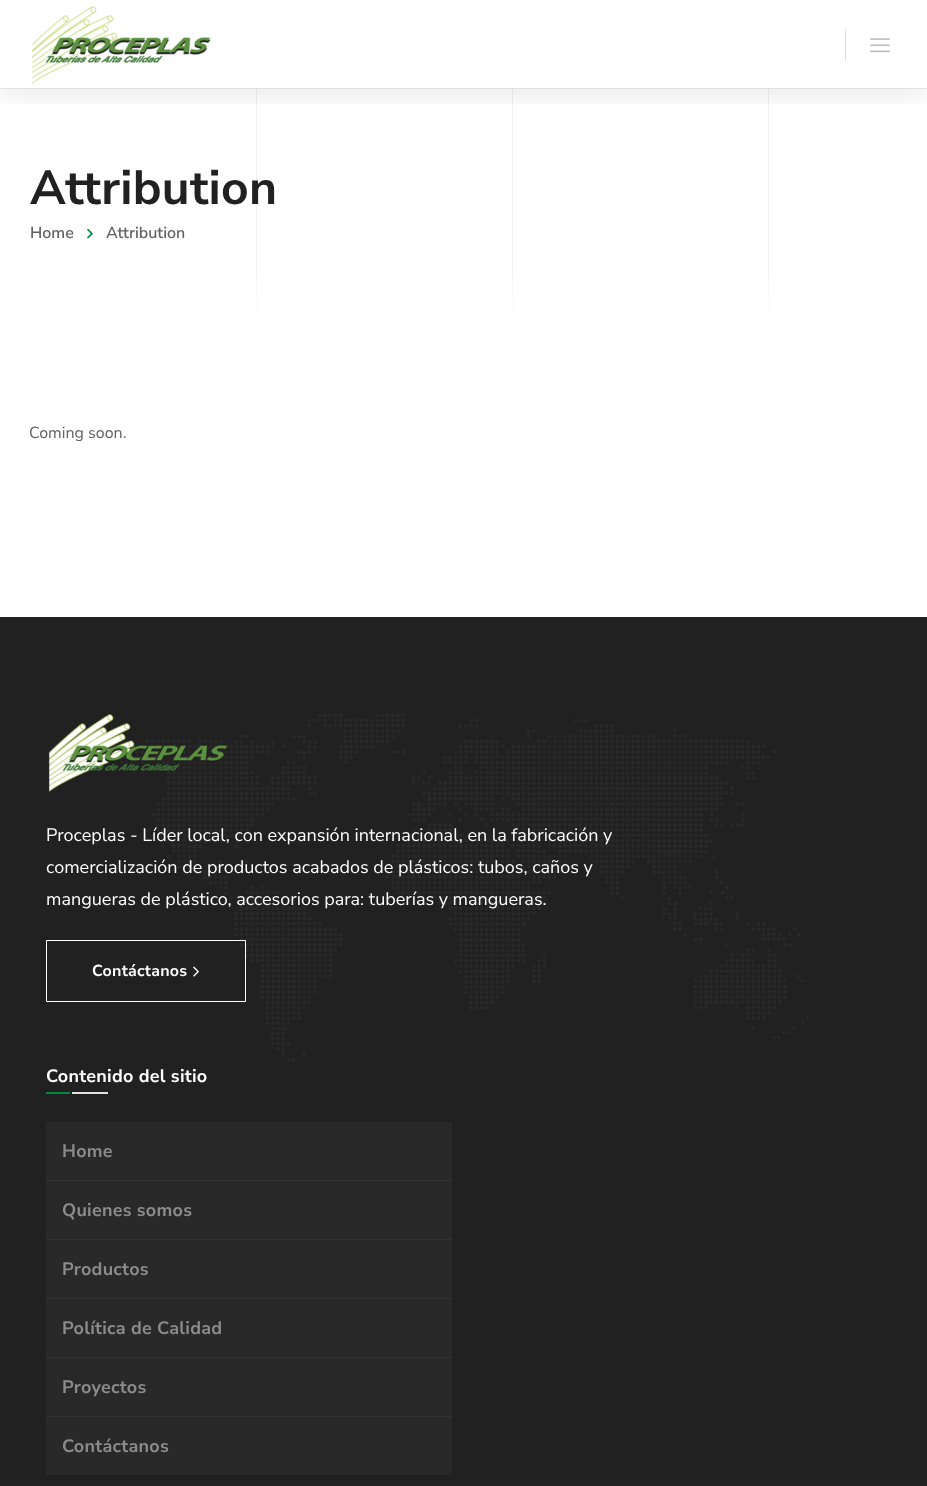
<svg xmlns="http://www.w3.org/2000/svg" width="927" height="1486" viewBox="0 0 927 1486">
  <defs>
    <clipPath id="clip1"><path d="M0 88h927v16H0z"/></clipPath>
    <linearGradient id="g1" gradientUnits="userSpaceOnUse" x1="464" y1="321" x2="464" y2="263"><stop offset="0" stop-color="#fff"/><stop offset="1" stop-color="#fff" stop-opacity="0"/></linearGradient>
  </defs>
  <rect width="100%" height="100%" fill="#fff"/>
  <image x="0" y="88" width="927" height="233" href="img/3.png"/>
  <g clip-path="url(#clip1)">
    <path d="M0 8h927v88H0z" fill="#00000014" filter="blur(12px)"/>
  </g>
  <image x="31" y="6" width="180" height="78" href="img/1.png"/>
  <path d="M845 29h1v32H845z" fill="#e0e0e0"/>
  <image x="870" y="38" width="20" height="15" href="img/2.png"/>
  <image x="87" y="228" width="6" height="11" href="img/4.png"/>
  <path d="M256 273h513v48H256z" fill="url(#g1)"/>
  <path d="M0 617h927v869H0z" fill="#212121"/>
  <image x="120" y="714" width="689" height="348" href="img/5.png"/>
  <image x="48" y="714" width="180" height="78" href="img/6.png"/>
  <path d="M46.5 940.5h199v61H46.5z" fill="none" stroke="#fff"/>
  <image x="193" y="966" width="6" height="11" href="img/7.png"/>
  <path d="M46 1092h24v2H46z" fill="#00883c"/>
  <path d="M72 1092h36v2H72z" fill="#e0e0e0"/>
  <path d="M46 1122h406v58H46z" fill="#292929"/>
  <path d="M46 1180h406v1H46z" fill="#333"/>
  <path d="M46 1181h406v58H46z" fill="#292929"/>
  <path d="M46 1239h406v1H46z" fill="#333"/>
  <path d="M46 1240h406v58H46z" fill="#292929"/>
  <path d="M46 1298h406v1H46z" fill="#333"/>
  <path d="M46 1299h406v58H46z" fill="#292929"/>
  <path d="M46 1357h406v1H46z" fill="#333"/>
  <path d="M46 1358h406v58H46z" fill="#292929"/>
  <path d="M46 1416h406v1H46z" fill="#333"/>
  <path d="M46 1417h406v58H46z" fill="#292929"/>
  <text x="30" y="204" font-family="Nunito Sans" font-size="48" font-weight="bold" letter-spacing="0.25" fill="#212121">Attribution</text>
  <g font-family="Nunito Sans" font-size="16" font-weight="600" fill="#616161">
    <text x="30" y="238">Home</text>
    <text x="106" y="238">Attribution</text>
  </g>
  <text x="29" y="438" font-family="Nunito Sans" font-size="16" fill="#616161">Coming soon.</text>
  <g font-family="Nunito Sans" font-size="18" fill="#fff">
    <text x="46" y="841">Proceplas - Líder local, con expansión internacional, en la fabricación y</text>
    <text x="46" y="873">comercialización de productos acabados de plásticos: tubos, caños y</text>
    <text x="46" y="905">mangueras de plástico, accesorios para: tuberías y mangueras.</text>
  </g>
  <text x="92" y="976" font-family="Nunito Sans" font-size="16" font-weight="bold" letter-spacing="0.25" fill="#fff">Contáctanos</text>
  <text x="46" y="1082" font-family="Nunito Sans" font-size="18" font-weight="bold" letter-spacing="0.25" fill="#fff">Contenido del sitio</text>
  <g font-family="Nunito Sans" font-size="18" font-weight="bold" letter-spacing="0.25" fill="#8b8b8b">
    <text x="62" y="1157">Home</text>
    <text x="62" y="1216">Quienes somos</text>
    <text x="62" y="1275">Productos</text>
    <text x="62" y="1334">Política de Calidad</text>
    <text x="62" y="1393">Proyectos</text>
    <text x="62" y="1452">Contáctanos</text>
  </g>
</svg>
